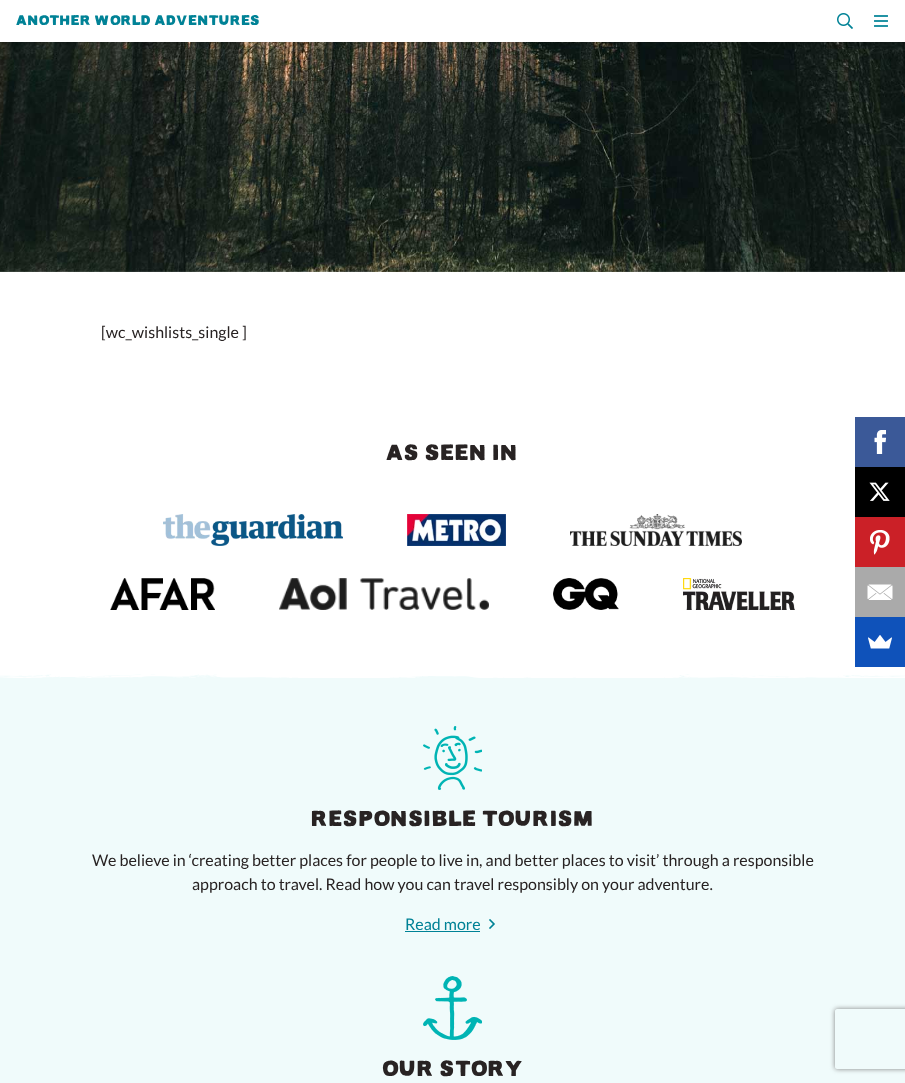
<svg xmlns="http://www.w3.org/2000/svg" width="905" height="1083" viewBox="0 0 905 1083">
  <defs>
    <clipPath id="clip1"><path d="M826 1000H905V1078H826ZM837 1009H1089C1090 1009 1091 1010 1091 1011V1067C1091 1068 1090 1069 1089 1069H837C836 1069 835 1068 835 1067V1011C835 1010 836 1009 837 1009Z" clip-rule="evenodd"/></clipPath>
  </defs>
  <rect width="100%" height="100%" fill="#fff"/>
  <image x="0" y="42" width="905" height="230" href="img/3.png"/>
  <path d="M0 1h905v42H0z" fill="#0000000f" filter="blur(1px)"/>
  <path d="M0 1h905v42H0z" fill="#0000001a" filter="blur(1.5px)"/>
  <path d="M0 0h905v42H0z" fill="#fff"/>
  <image x="837" y="13" width="16" height="16" href="img/1.png"/>
  <image x="874" y="15" width="14" height="12" href="img/2.png"/>
  <image x="163" y="514" width="180" height="32" href="img/4.png"/>
  <image x="407" y="514" width="99" height="32" href="img/5.png"/>
  <image x="570" y="514" width="172" height="32" href="img/6.png"/>
  <image x="110" y="578" width="105" height="32" href="img/7.png"/>
  <image x="279" y="578" width="210" height="32" href="img/8.png"/>
  <image x="553" y="578" width="66" height="32" href="img/9.png"/>
  <image x="683" y="578" width="112" height="32" href="img/10.png"/>
  <path d="M855 417h50v50H855z" fill="#3b5998"/>
  <image x="874" y="430" width="12" height="24" href="img/11.png"/>
  <path d="M855 467h50v50H855z" fill="#000"/>
  <image x="869" y="482" width="21" height="19" href="img/12.png"/>
  <path d="M855 517h50v50H855z" fill="#cb2027"/>
  <image x="870" y="530" width="20" height="25" href="img/13.png"/>
  <path d="M855 567h50v50H855z" fill="#aaa"/>
  <image x="867" y="584" width="26" height="16" href="img/14.png"/>
  <path d="M855 617h50v50H855z" fill="#0f52ba"/>
  <image x="868" y="635" width="24" height="14" href="img/15.png"/>
  <image x="0" y="674" width="905" height="4" href="img/16.png"/>
  <path d="M0 678h905v405H0z" fill="#f0fbfb"/>
  <image x="423" y="726" width="59" height="64" href="img/17.png"/>
  <path d="M405 931h75v1H405z" fill="#008296"/>
  <image x="489" y="919" width="6" height="10" href="img/18.png"/>
  <image x="423" y="976" width="59" height="64" href="img/19.png"/>
  <g clip-path="url(#clip1)">
    <rect x="835" y="1009" width="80" height="60" rx="2" fill="#808080" filter="blur(2.5px)"/>
  </g>
  <text x="16" y="25" font-family="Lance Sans" font-size="14" fill="#008296">Another World Adventures</text>
  <text x="101" y="338" font-family="Lato" font-size="16" fill="#282323">[wc_wishlists_single ]</text>
  <g font-family="Lance Sans" font-size="22" fill="#282323">
    <text x="386" y="460">AS SEEN IN</text>
    <text x="311" y="826">RESPONSIBLE TOURISM</text>
  </g>
  <g font-family="Lato" font-size="16" fill="#282323">
    <text x="92" y="866">We believe in ‘creating better places for people to live in, and better places to visit’ through a responsible</text>
    <text x="192" y="890">approach to travel. Read how you can travel responsibly on your adventure.</text>
  </g>
  <text x="405" y="930" font-family="Lato" font-size="16" fill="#008296">Read more</text>
  <text x="382" y="1076" font-family="Lance Sans" font-size="22" fill="#282323">OUR STORY</text>
</svg>
